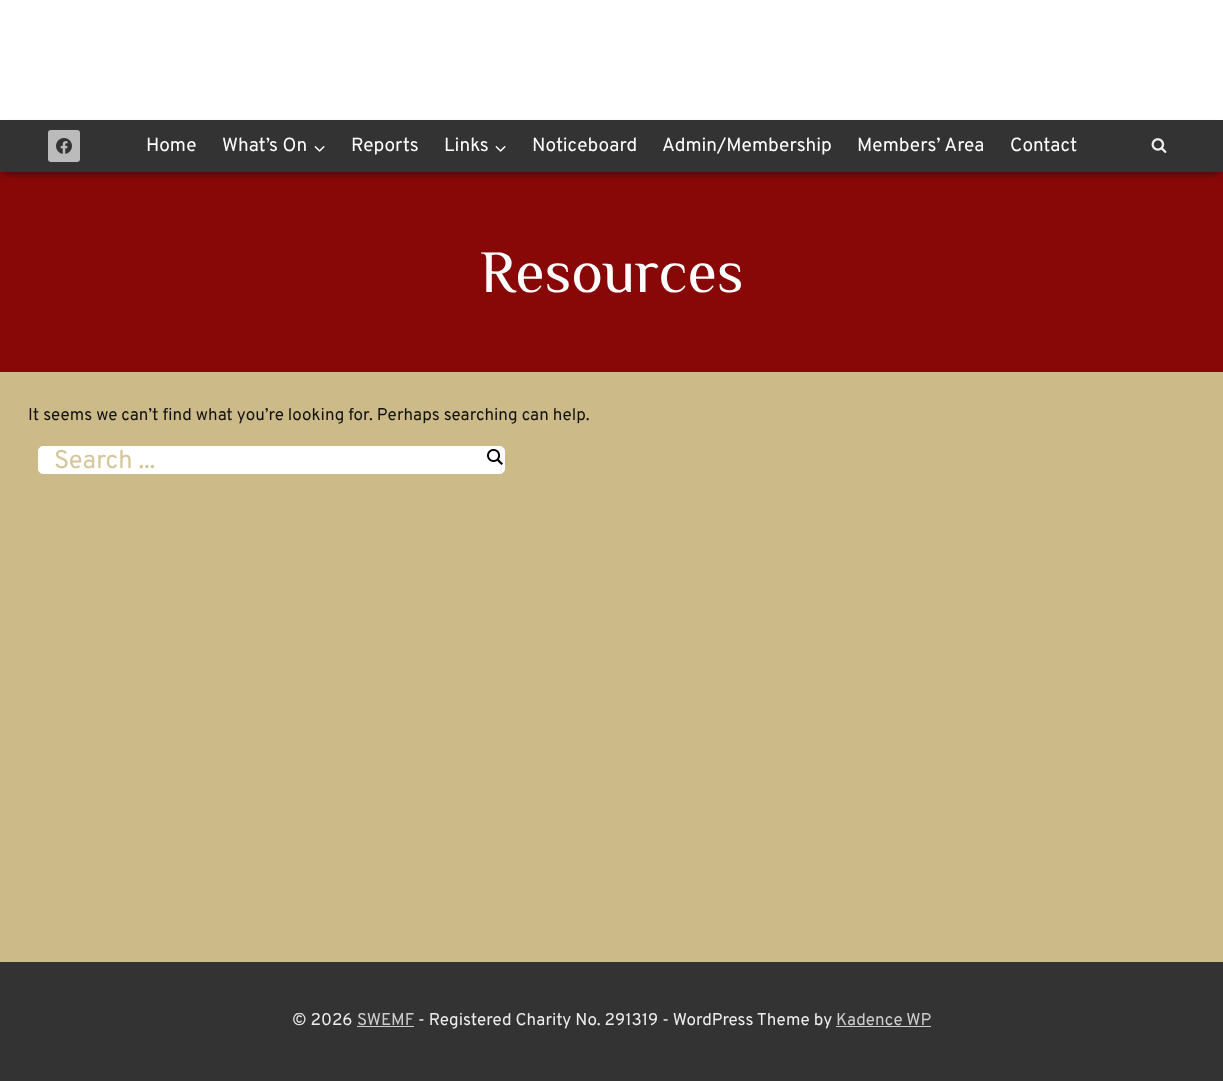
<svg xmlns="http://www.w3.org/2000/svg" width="1223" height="1081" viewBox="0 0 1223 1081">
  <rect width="100%" height="100%" fill="#cb8"/>
  <path d="M0 0h1223v120H0z" fill="#fff"/>
  <path d="M0 172h1223v200H0z" fill="#880808"/>
  <path d="M4 128h1215v44H4z" fill="#111" filter="blur(4px)"/>
  <path d="M0 120h1223v52H0z" fill="#333"/>
  <rect x="48" y="130" width="32" height="32" rx="3" fill="#bbb"/>
  <image x="56" y="138" width="16" height="16" href="img/1.png"/>
  <image x="314" y="146" width="11" height="6" href="img/2.png"/>
  <image x="495" y="146" width="11" height="6" href="img/2.png"/>
  <image x="1151" y="138" width="16" height="15" href="img/3.png"/>
  <rect x="38.5" y="446.5" width="466" height="27" rx="4.5" fill="#fff" stroke="#fff"/>
  <image x="487" y="449" width="16" height="16" href="img/4.png"/>
  <path d="M0 962h1223v119H0z" fill="#333"/>
  <path d="M357 1026h57v1H357z" fill="#ccc"/>
  <path d="M836 1026h95v1H836z" fill="#ccc"/>
  <g font-family="Overpass" font-size="19" fill="#fff">
    <text x="146" y="151">Home</text>
    <text x="222" y="151">What’s On</text>
    <text x="351" y="151">Reports</text>
    <text x="444" y="151">Links</text>
    <text x="532" y="151">Noticeboard</text>
    <text x="662" y="151">Admin/Membership</text>
    <text x="857" y="151">Members’ Area</text>
    <text x="1010" y="151">Contact</text>
  </g>
  <text x="480" y="292" font-family="Philosopher" font-size="60" fill="#fff">Resources</text>
  <text x="28" y="420" font-family="Overpass" font-size="17" fill="#111">It seems we can’t find what you’re looking for. Perhaps searching can help.</text>
  <text x="54" y="468" font-family="Overpass" font-size="25.5" fill="#d4c59a">Search ...</text>
  <text x="292" y="1025" font-family="Overpass" font-size="17" fill="#eee">© 2026</text>
  <text x="357" y="1025" font-family="Overpass" font-size="17" fill="#ccc">SWEMF</text>
  <text x="418" y="1025" font-family="Overpass" font-size="17" fill="#eee">- Registered Charity No. 291319 - WordPress Theme by</text>
  <text x="836" y="1025" font-family="Overpass" font-size="17" fill="#ccc">Kadence WP</text>
</svg>
